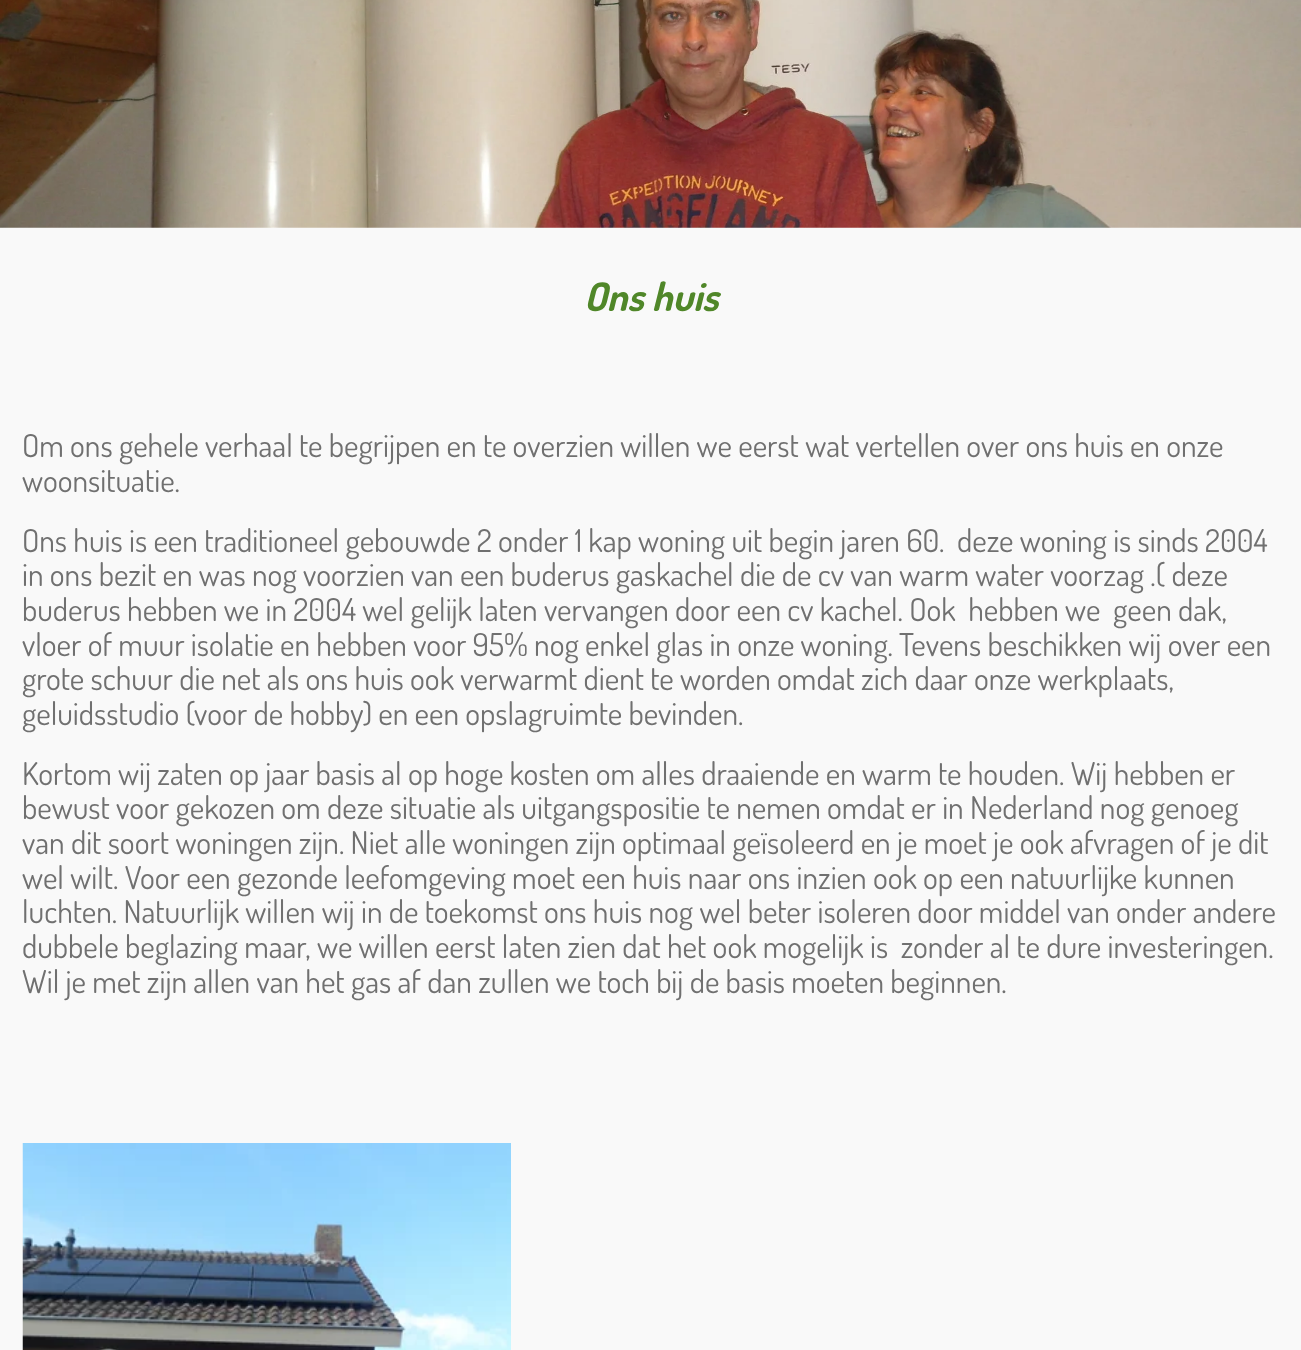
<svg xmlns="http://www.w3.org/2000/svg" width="1301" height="1350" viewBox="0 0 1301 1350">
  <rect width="100%" height="100%" fill="#fff"/>
  <image x="0" y="0" width="1301" height="228" href="img/1.png"/>
  <path d="M0 228h1301v1122H0z" fill="#f9f9f9"/>
  <image x="22" y="1143" width="489" height="207" href="img/2.png"/>
  <text x="584" y="311" font-family="Dosis" font-size="39.5" font-weight="bold" font-style="italic" fill="#508729">Ons huis</text>
  <g font-family="Dosis" font-size="31.5" fill="#707070">
    <text x="22" y="457">Om ons gehele verhaal te begrijpen en te overzien willen we eerst wat vertellen over ons huis en onze</text>
    <text x="22" y="492">woonsituatie.</text>
    <text x="22" y="552" xml:space="preserve">Ons huis is een traditioneel gebouwde 2 onder 1 kap woning uit begin jaren 60.  deze woning is sinds 2004</text>
    <text x="22" y="586">in ons bezit en was nog voorzien van een buderus gaskachel die de cv van warm water voorzag .( deze</text>
    <text x="22" y="621" xml:space="preserve">buderus hebben we in 2004 wel gelijk laten vervangen door een cv kachel. Ook  hebben we  geen dak,</text>
    <text x="22" y="656">vloer of muur isolatie en hebben voor 95% nog enkel glas in onze woning. Tevens beschikken wij over een</text>
    <text x="22" y="690">grote schuur die net als ons huis ook verwarmt dient te worden omdat zich daar onze werkplaats,</text>
    <text x="22" y="725">geluidsstudio (voor de hobby) en een opslagruimte bevinden.</text>
    <text x="22" y="785">Kortom wij zaten op jaar basis al op hoge kosten om alles draaiende en warm te houden. Wij hebben er</text>
    <text x="22" y="819">bewust voor gekozen om deze situatie als uitgangspositie te nemen omdat er in Nederland nog genoeg</text>
    <text x="22" y="854">van dit soort woningen zijn. Niet alle woningen zijn optimaal geïsoleerd en je moet je ook afvragen of je dit</text>
    <text x="22" y="889">wel wilt. Voor een gezonde leefomgeving moet een huis naar ons inzien ook op een natuurlijke kunnen</text>
    <text x="22" y="923">luchten. Natuurlijk willen wij in de toekomst ons huis nog wel beter isoleren door middel van onder andere</text>
    <text x="22" y="958" xml:space="preserve">dubbele beglazing maar, we willen eerst laten zien dat het ook mogelijk is  zonder al te dure investeringen.</text>
    <text x="22" y="993">Wil je met zijn allen van het gas af dan zullen we toch bij de basis moeten beginnen.</text>
  </g>
</svg>
